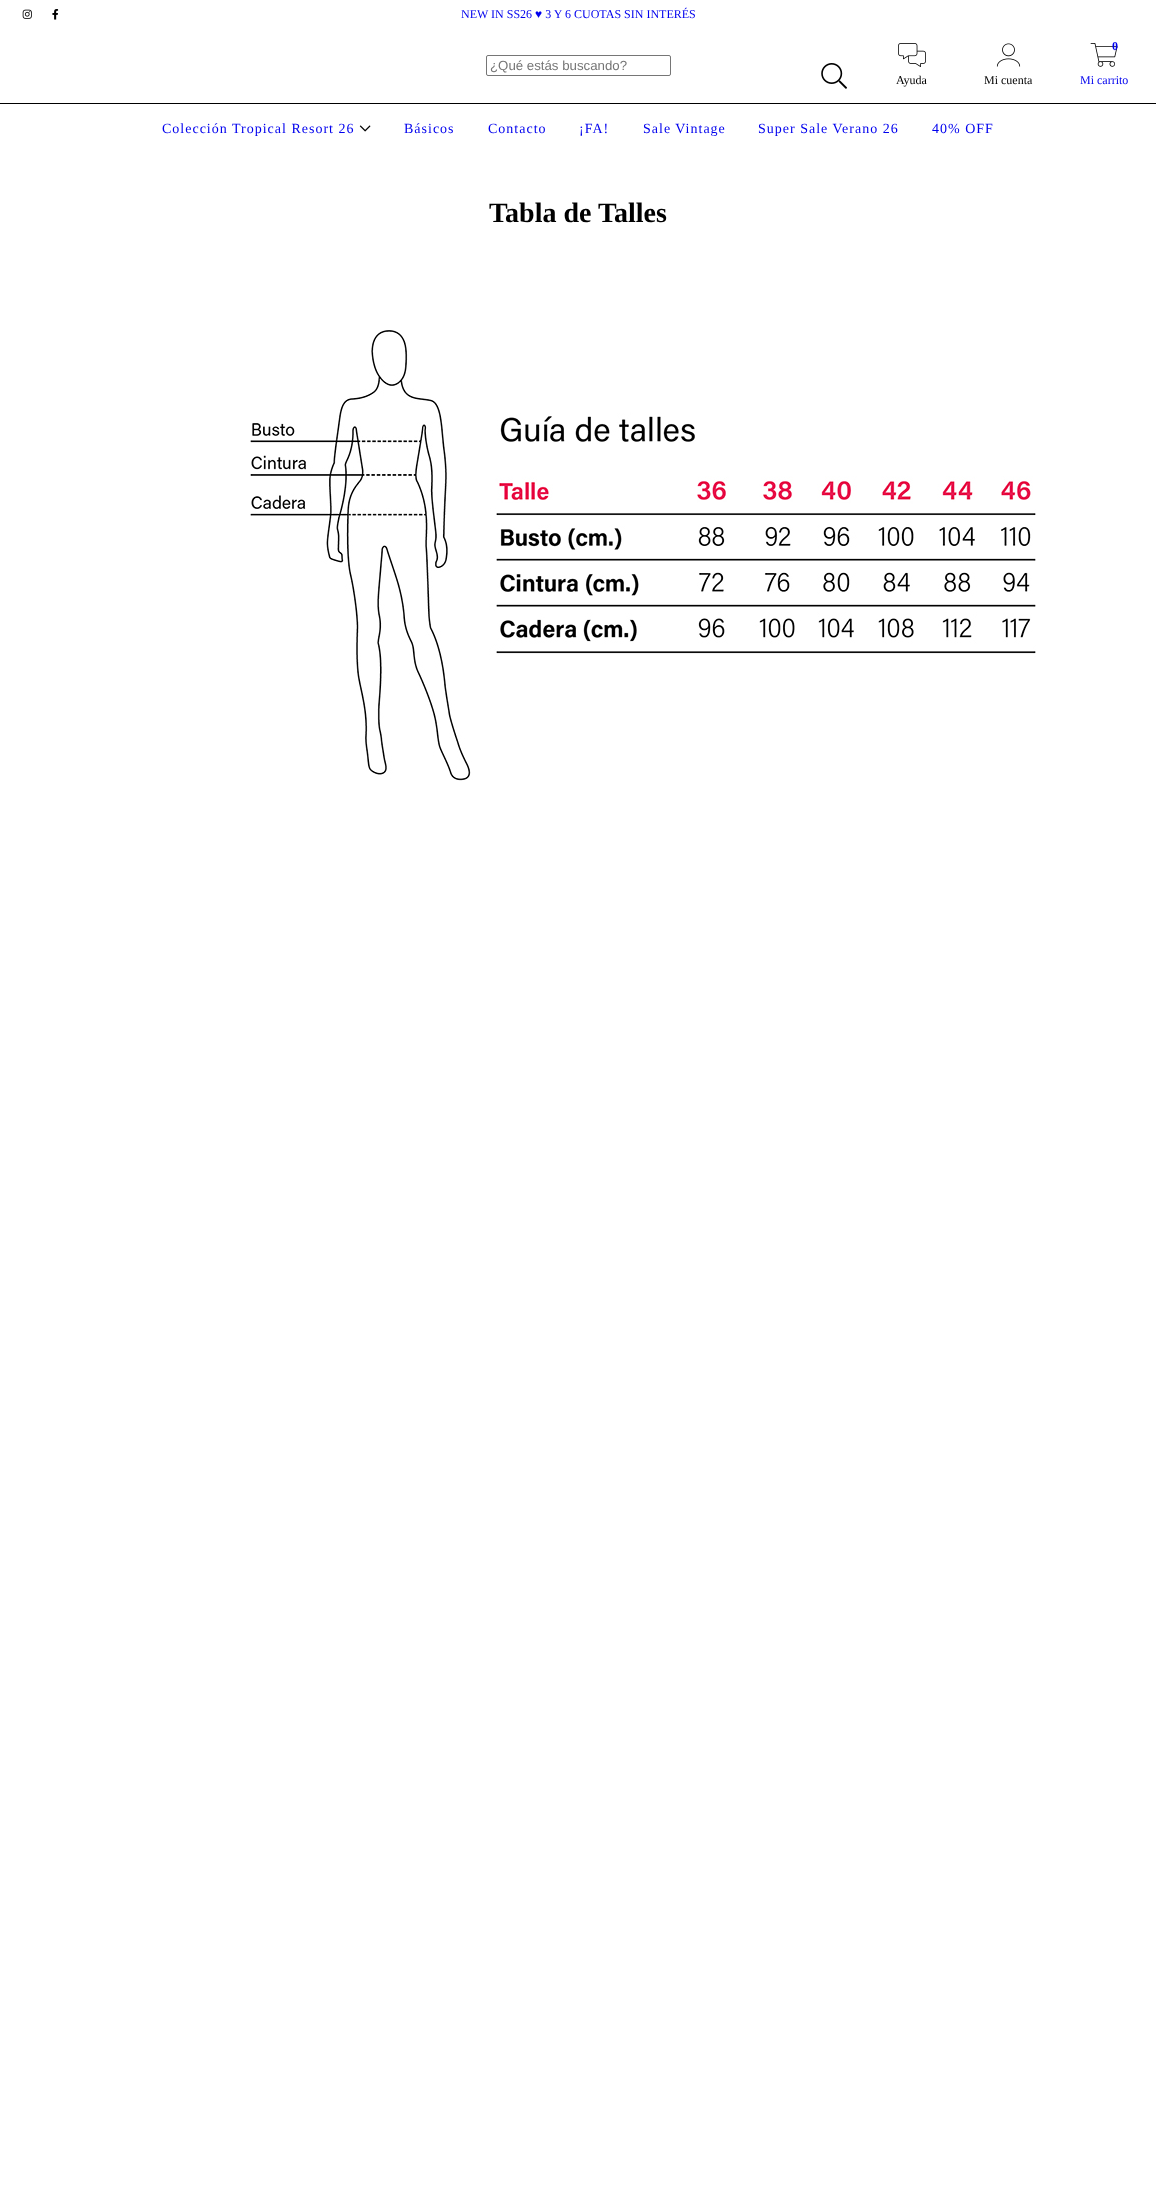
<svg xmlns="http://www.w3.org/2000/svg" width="1156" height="2212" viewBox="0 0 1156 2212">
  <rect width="100%" height="100%" fill="#fff"/>
  <image x="22" y="9" width="10" height="10" href="img/1.png"/>
  <image x="52" y="9" width="7" height="11" href="img/2.png"/>
  <rect x="486.5" y="55.5" width="184" height="20" rx="1.5" fill="none" stroke="#767676"/>
  <image x="821" y="63" width="26" height="26" href="img/3.png"/>
  <image x="898" y="43" width="28" height="24" href="img/4.png"/>
  <image x="996" y="43" width="25" height="24" href="img/5.png"/>
  <image x="1090" y="43" width="28" height="24" href="img/6.png"/>
  <path d="M0 103h1156v1H0z" fill="#000"/>
  <image x="359" y="125" width="12" height="7" href="img/7.png"/>
  <image x="250" y="330" width="786" height="451" href="img/8.png"/>
  <text x="461" y="18" font-family="Liberation Serif" font-size="12" fill="#00e">NEW IN SS26 ♥ 3 Y 6 CUOTAS SIN INTERÉS</text>
  <text x="490" y="70" font-family="Liberation Sans" font-size="13.25" fill="#757575">¿Qué estás buscando?</text>
  <g font-family="Liberation Serif" font-size="12" fill="#000">
    <text x="896" y="84">Ayuda</text>
    <text x="984" y="84">Mi cuenta</text>
  </g>
  <text x="1112" y="50" font-family="Liberation Serif" font-size="12" font-weight="bold" fill="#00e">0</text>
  <text x="1080" y="84" font-family="Liberation Serif" font-size="12" fill="#00e">Mi carrito</text>
  <g font-family="Liberation Serif" font-size="14" letter-spacing="1" fill="#00e">
    <text x="162" y="133">Colección Tropical Resort 26</text>
    <text x="404" y="133">Básicos</text>
    <text x="488" y="133">Contacto</text>
    <text x="579" y="133">¡FA!</text>
    <text x="643" y="133">Sale Vintage</text>
    <text x="758" y="133">Super Sale Verano 26</text>
    <text x="932" y="133">40% OFF</text>
  </g>
  <text x="489" y="222" font-family="Liberation Serif" font-size="28" font-weight="bold" fill="#000">Tabla de Talles</text>
</svg>
